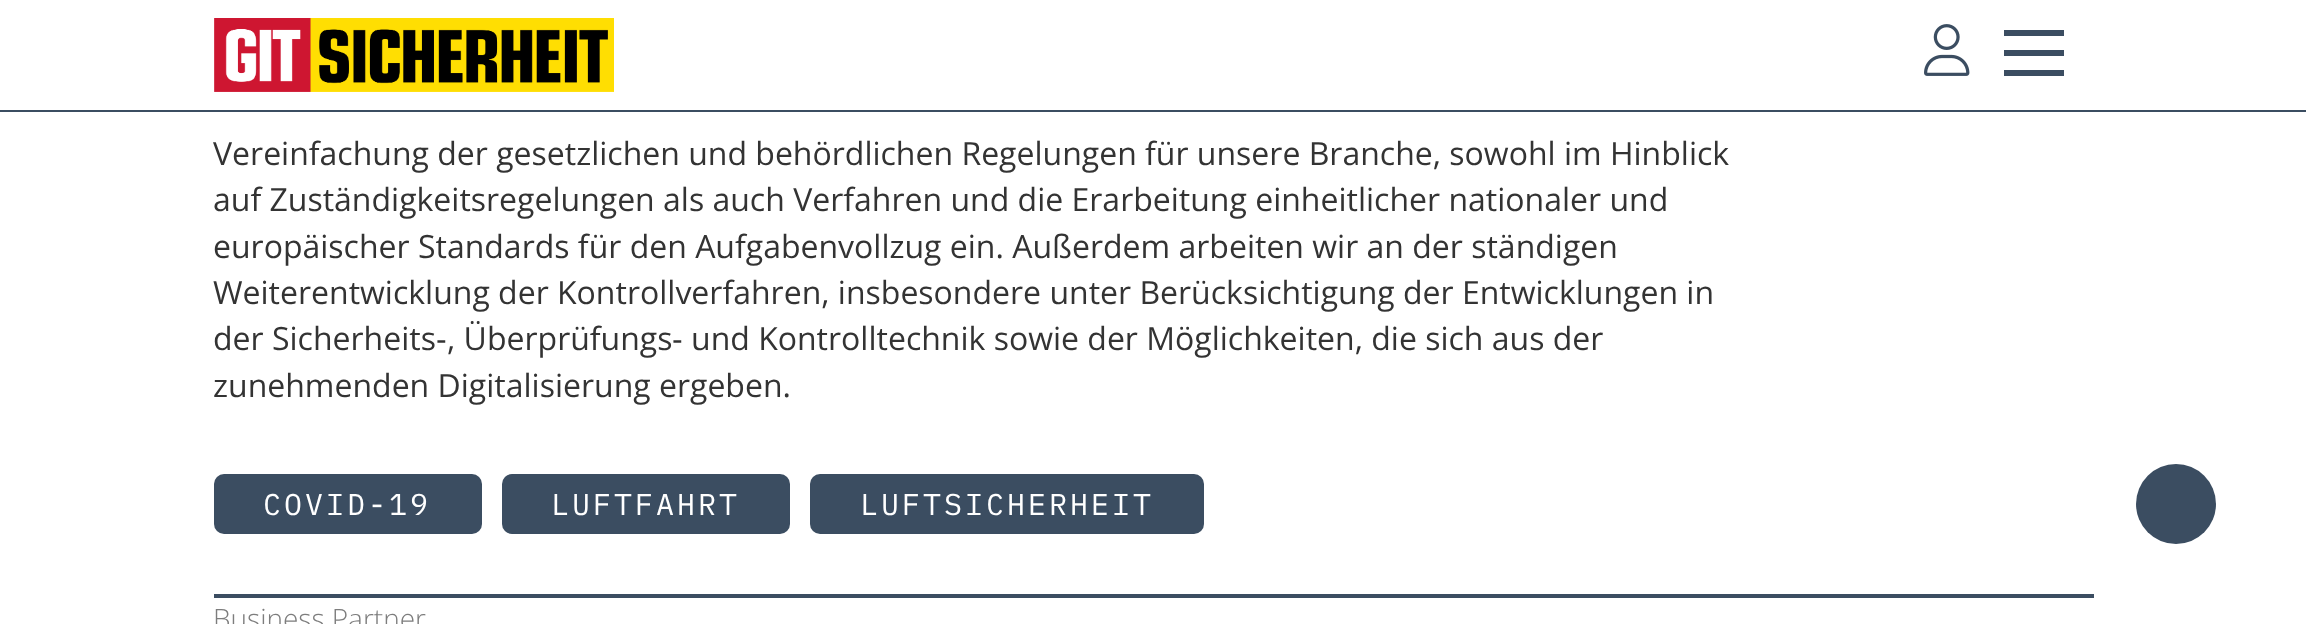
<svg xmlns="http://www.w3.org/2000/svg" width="2306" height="624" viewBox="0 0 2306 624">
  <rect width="100%" height="100%" fill="#fff"/>
  <path d="M0 110h2306v2H0z" fill="#3b4d61"/>
  <image x="214" y="18" width="400" height="74" href="img/1.png"/>
  <image x="1924" y="24" width="46" height="52" href="img/2.png"/>
  <path d="M2004 30h60v6H2004z" fill="#3b4d61"/>
  <path d="M2004 50h60v6H2004z" fill="#3b4d61"/>
  <path d="M2004 70h60v6H2004z" fill="#3b4d61"/>
  <rect x="214" y="474" width="268" height="60" rx="10" fill="#3b4d61"/>
  <rect x="502" y="474" width="288" height="60" rx="10" fill="#3b4d61"/>
  <rect x="810" y="474" width="394" height="60" rx="10" fill="#3b4d61"/>
  <path d="M214 594h1880v4H214z" fill="#3b4d61"/>
  <circle cx="2176" cy="504" r="40" fill="#3b4d61"/>
  <g font-family="Open Sans" font-size="32" fill="#333">
    <text x="213" y="165">Vereinfachung der gesetzlichen und behördlichen Regelungen für unsere Branche, sowohl im Hinblick</text>
    <text x="213" y="211">auf Zuständigkeitsregelungen als auch Verfahren und die Erarbeitung einheitlicher nationaler und</text>
    <text x="213" y="258">europäischer Standards für den Aufgabenvollzug ein. Außerdem arbeiten wir an der ständigen</text>
    <text x="213" y="304">Weiterentwicklung der Kontrollverfahren, insbesondere unter Berücksichtigung der Entwicklungen in</text>
    <text x="213" y="350">der Sicherheits</text>
  </g>
  <text x="436" y="350" font-family="Liberation Sans" font-size="32" fill="#333">‐</text>
  <text x="447" y="350" font-family="Open Sans" font-size="32" fill="#333">, Überprüfungs</text>
  <text x="672" y="350" font-family="Liberation Sans" font-size="32" fill="#333">‐</text>
  <g font-family="Open Sans" font-size="32" fill="#333">
    <text x="691" y="350">und Kontrolltechnik sowie der Möglichkeiten, die sich aus der</text>
    <text x="213" y="397">zunehmenden Digitalisierung ergeben.</text>
  </g>
  <g font-family="IBM Plex Mono" font-size="30" letter-spacing="3" fill="#fff">
    <text x="263" y="515">COVID-19</text>
    <text x="551" y="515">LUFTFAHRT</text>
    <text x="860" y="515">LUFTSICHERHEIT</text>
  </g>
  <text x="213" y="629" font-family="Open Sans" font-size="28" font-weight="300" fill="#7d7d7d">Business Partner</text>
</svg>
